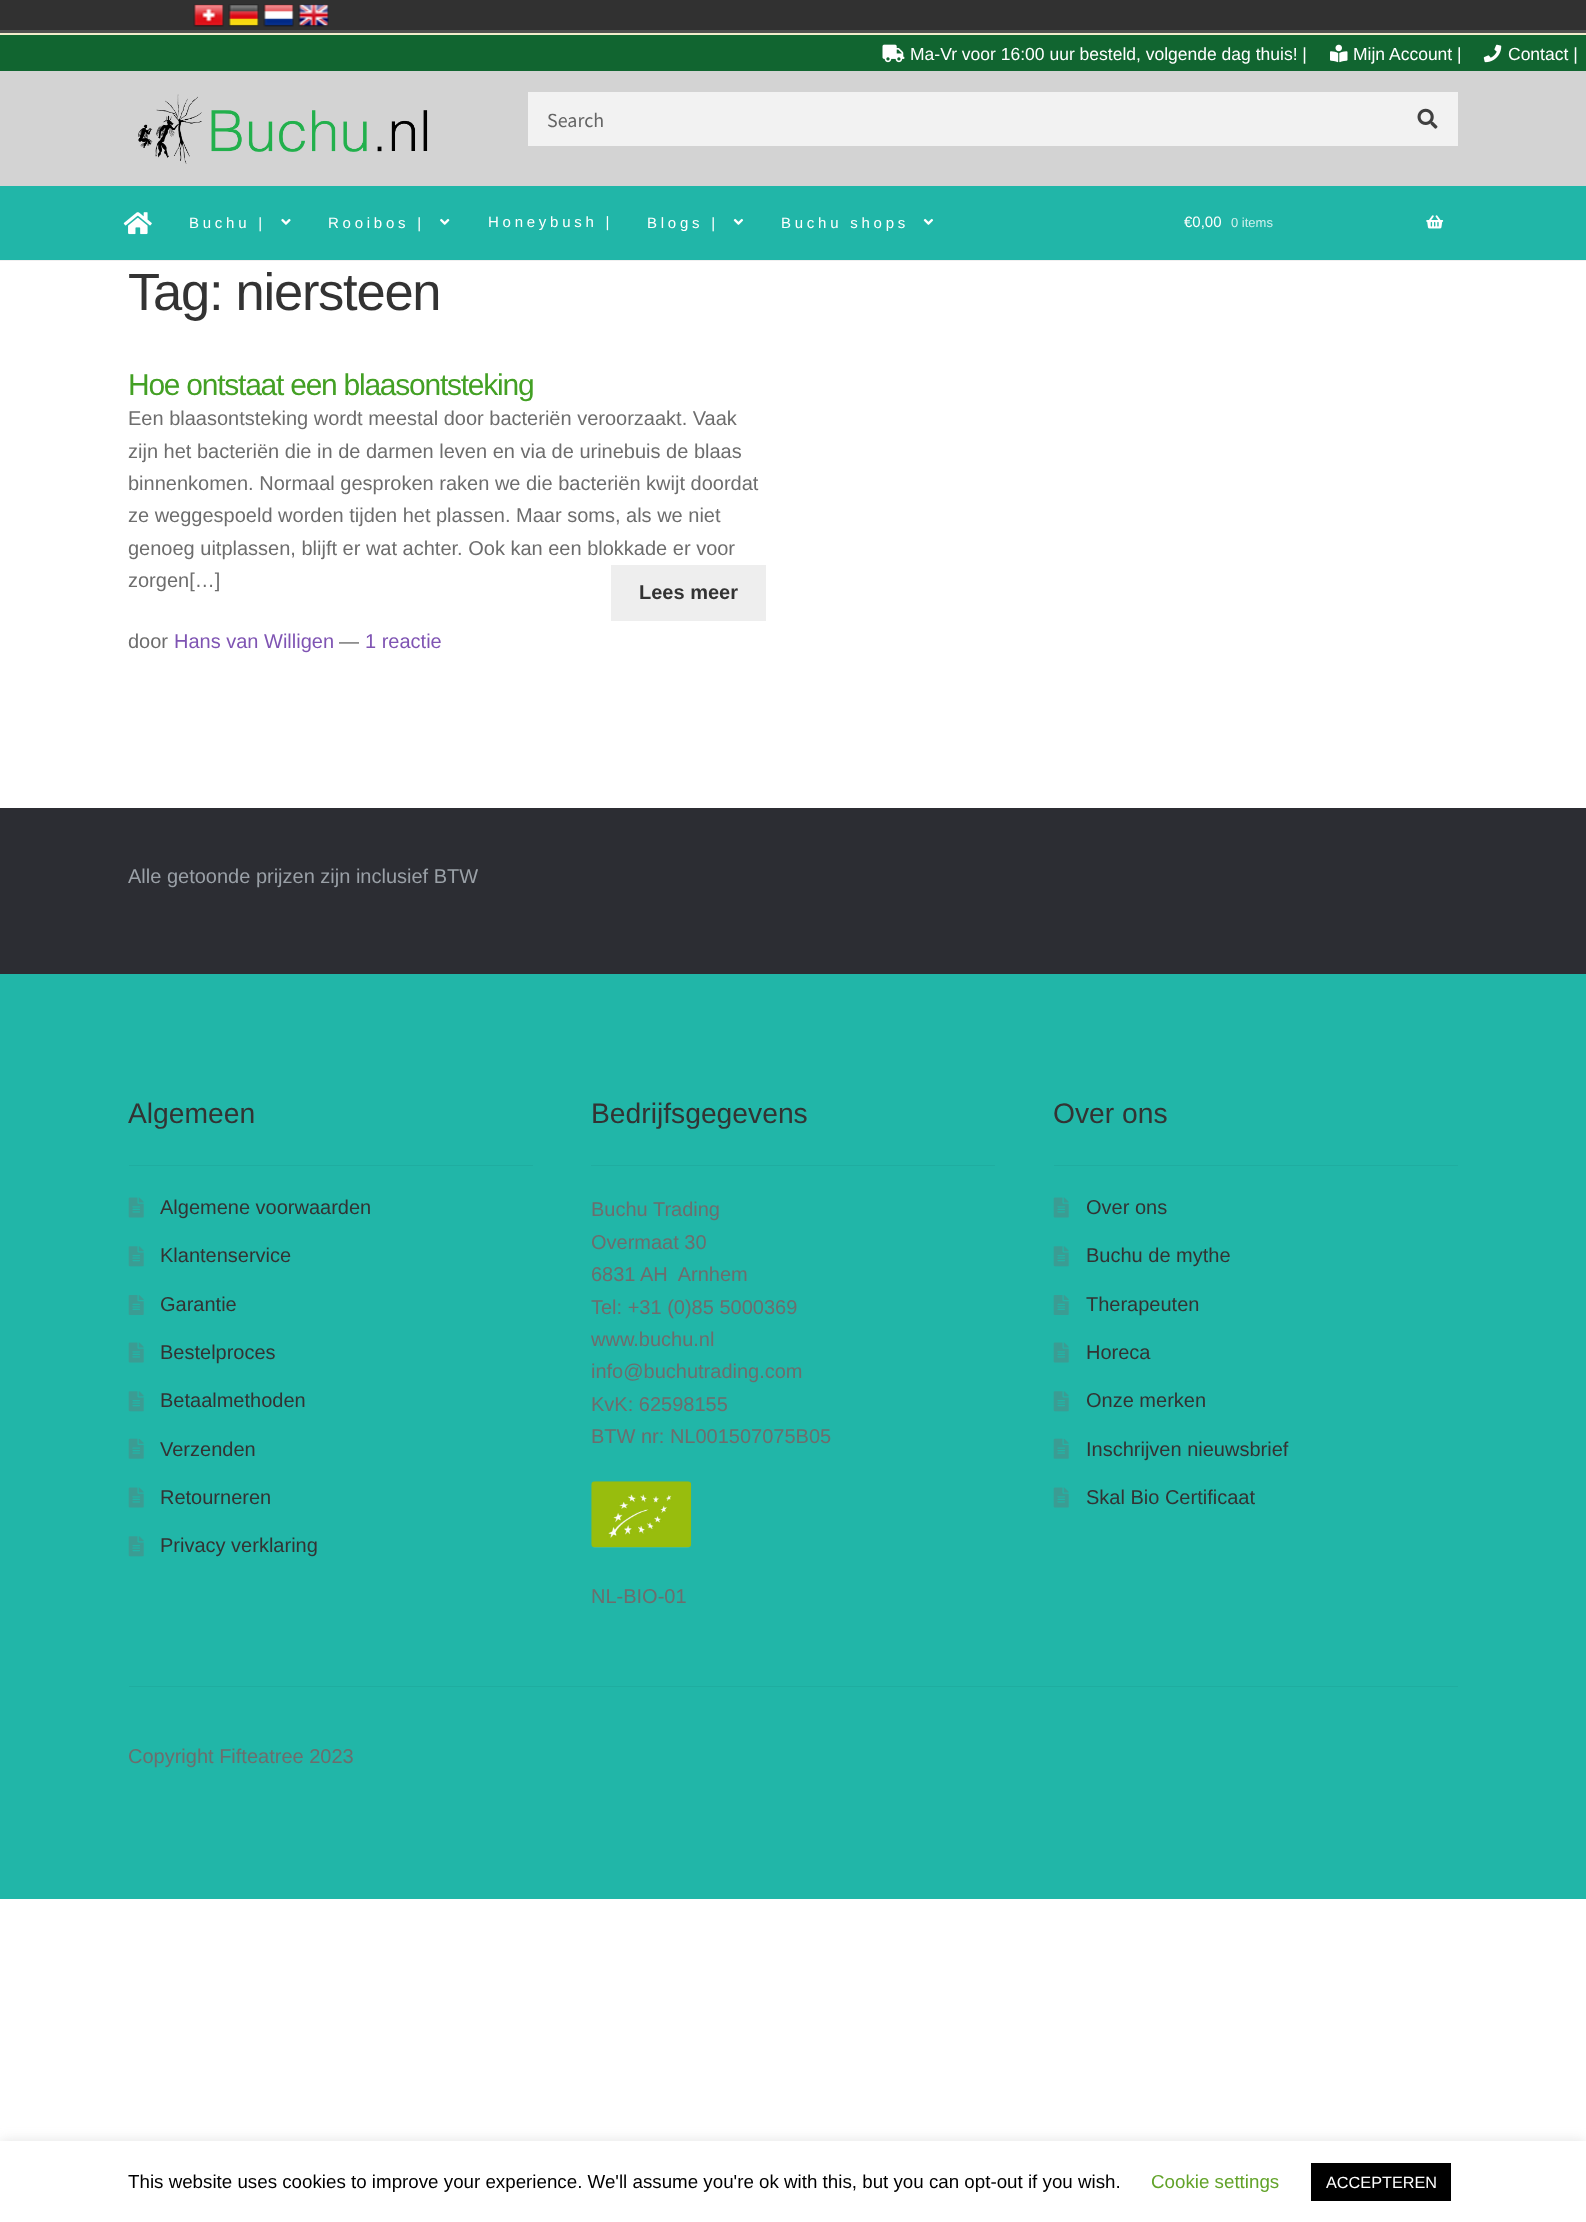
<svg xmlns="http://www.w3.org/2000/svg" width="1586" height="2222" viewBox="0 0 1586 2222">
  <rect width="100%" height="100%" fill="#fff"/>
  <path d="M0 0h1586v30H0z" fill="#313131"/>
  <path d="M0 30h1586v3H0z" fill="#515150"/>
  <image x="193" y="4" width="31" height="23" href="img/1.png"/>
  <image x="228" y="4" width="31" height="23" href="img/2.png"/>
  <image x="263" y="4" width="31" height="23" href="img/3.png"/>
  <image x="298" y="4" width="31" height="23" href="img/4.png"/>
  <path d="M0 33h1586v2H0z" fill="#f2edcb"/>
  <path d="M0 35h1586v36H0z" fill="#116530"/>
  <image x="882" y="44" width="23" height="19" href="img/5.png"/>
  <image x="1330" y="44" width="18" height="19" href="img/6.png"/>
  <image x="1483" y="44" width="19" height="19" href="img/7.png"/>
  <path d="M0 71h1586v115H0z" fill="#d3d3d3"/>
  <path d="M0 260h1586v1H0z" fill="#f0f0f0"/>
  <image x="138" y="94" width="290" height="70" href="img/8.png"/>
  <path d="M528 92h930v54H528z" fill="#f2f2f2"/>
  <image x="1417" y="108" width="21" height="21" href="img/9.png"/>
  <path d="M0 186h1586v74H0z" fill="#21b6a8"/>
  <image x="123" y="212" width="29" height="23" href="img/10.png"/>
  <image x="281" y="218" width="10" height="7" href="img/11.png"/>
  <image x="440" y="218" width="10" height="7" href="img/12.png"/>
  <image x="733" y="218" width="11" height="7" href="img/13.png"/>
  <image x="923" y="218" width="11" height="7" href="img/13.png"/>
  <image x="1426" y="215" width="18" height="14" href="img/14.png"/>
  <path d="M611 565h155v56H611z" fill="#eee"/>
  <path d="M0 808h1586v166H0z" fill="#2c2d33"/>
  <path d="M0 974h1586v925H0z" fill="#21b6a8"/>
  <path d="M129 1686h1329v1H129z" fill="#1fada0"/>
  <path d="M129 1165h404v1H129z" fill="#1fada0"/>
  <image x="128" y="1197" width="16" height="21" href="img/15.png"/>
  <image x="128" y="1246" width="16" height="21" href="img/16.png"/>
  <image x="128" y="1295" width="16" height="20" href="img/17.png"/>
  <image x="128" y="1342" width="16" height="21" href="img/15.png"/>
  <image x="128" y="1391" width="16" height="21" href="img/16.png"/>
  <image x="128" y="1438" width="16" height="21" href="img/18.png"/>
  <image x="128" y="1487" width="16" height="21" href="img/15.png"/>
  <image x="128" y="1536" width="16" height="21" href="img/16.png"/>
  <path d="M591 1165h404v1H591z" fill="#1fada0"/>
  <image x="591" y="1481" width="101" height="67" href="img/19.png"/>
  <path d="M1054 1165h404v1H1054z" fill="#1fada0"/>
  <image x="1053" y="1197" width="16" height="21" href="img/15.png"/>
  <image x="1053" y="1246" width="16" height="21" href="img/16.png"/>
  <image x="1053" y="1295" width="16" height="20" href="img/17.png"/>
  <image x="1053" y="1342" width="16" height="21" href="img/15.png"/>
  <image x="1053" y="1391" width="16" height="21" href="img/16.png"/>
  <image x="1053" y="1438" width="16" height="21" href="img/18.png"/>
  <image x="1053" y="1487" width="16" height="21" href="img/15.png"/>
  <path d="M0 2140h1586v81H0z" fill="#acabab4d" filter="blur(6px)"/>
  <path d="M0 2141h1586v81H0z" fill="#fff"/>
  <path d="M1311 2163h140v38H1311z" fill="#000"/>
  <g font-family="Liberation Sans" font-size="17.5" fill="#fff">
    <text x="910" y="60">Ma-Vr voor 16:00 uur besteld, volgende dag thuis! |</text>
    <text x="1353" y="60">Mijn Account |</text>
    <text x="1508" y="60">Contact |</text>
  </g>
  <text x="547" y="127" font-family="Source Sans Pro" font-size="20" fill="#656565">Search</text>
  <g font-family="Liberation Sans" font-size="15" letter-spacing="3.75" fill="#fff">
    <text x="189" y="228">Buchu |</text>
    <text x="328" y="228">Rooibos |</text>
    <text x="488" y="227">Honeybush |</text>
    <text x="647" y="228">Blogs |</text>
    <text x="781" y="228">Buchu shops</text>
  </g>
  <text x="1184" y="227" font-family="Liberation Sans" font-size="15" fill="#fff">€0,00</text>
  <text x="1231" y="227" font-family="Liberation Sans" font-size="13" fill="#d0f0ed">0 items</text>
  <text x="128" y="310" font-family="Liberation Sans" font-size="52.5" letter-spacing="-1.25" fill="#333">Tag: niersteen</text>
  <text x="128" y="395" font-family="Liberation Sans" font-size="30" letter-spacing="-1.25" fill="#43a024">Hoe ontstaat een blaasontsteking</text>
  <g font-family="Liberation Sans" font-size="20" fill="#6d6d6d">
    <text x="128" y="425">Een blaasontsteking wordt meestal door bacteriën veroorzaakt. Vaak</text>
    <text x="128" y="458">zijn het bacteriën die in de darmen leven en via de urinebuis de blaas</text>
    <text x="128" y="490">binnenkomen. Normaal gesproken raken we die bacteriën kwijt doordat</text>
    <text x="128" y="522">ze weggespoeld worden tijden het plassen. Maar soms, als we niet</text>
    <text x="128" y="555">genoeg uitplassen, blijft er wat achter. Ook kan een blokkade er voor</text>
    <text x="128" y="587">zorgen[…]</text>
  </g>
  <text x="639" y="599" font-family="Liberation Sans" font-size="20" font-weight="bold" fill="#333">Lees meer</text>
  <text x="128" y="648" font-family="Liberation Sans" font-size="20" fill="#6d6d6d">door</text>
  <text x="174" y="648" font-family="Liberation Sans" font-size="20" fill="#7f54b3">Hans van Willigen</text>
  <text x="339" y="648" font-family="Liberation Sans" font-size="20" fill="#6d6d6d">—</text>
  <text x="365" y="648" font-family="Liberation Sans" font-size="20" fill="#7f54b3">1 reactie</text>
  <text x="128" y="883" font-family="Liberation Sans" font-size="20" fill="#9aa0a7">Alle getoonde prijzen zijn inclusief BTW</text>
  <text x="128" y="1123" font-family="Liberation Sans" font-size="28.25" fill="#333">Algemeen</text>
  <g font-family="Liberation Sans" font-size="20" fill="#333">
    <text x="160" y="1214">Algemene voorwaarden</text>
    <text x="160" y="1262">Klantenservice</text>
    <text x="160" y="1311">Garantie</text>
    <text x="160" y="1359">Bestelproces</text>
    <text x="160" y="1407">Betaalmethoden</text>
    <text x="160" y="1456">Verzenden</text>
    <text x="160" y="1504">Retourneren</text>
    <text x="160" y="1552">Privacy verklaring</text>
  </g>
  <text x="591" y="1123" font-family="Liberation Sans" font-size="28.25" fill="#333">Bedrijfsgegevens</text>
  <g font-family="Liberation Sans" font-size="20" fill="#6d6d6d">
    <text x="591" y="1216">Buchu Trading</text>
    <text x="591" y="1249">Overmaat 30</text>
    <text x="591" y="1281" xml:space="preserve">6831 AH  Arnhem</text>
    <text x="591" y="1314">Tel: +31 (0)85 5000369</text>
    <text x="591" y="1346">www.buchu.nl</text>
    <text x="591" y="1378">info@buchutrading.com</text>
    <text x="591" y="1411">KvK: 62598155</text>
    <text x="591" y="1443">BTW nr: NL001507075B05</text>
    <text x="591" y="1603">NL-BIO-01</text>
  </g>
  <text x="1053" y="1123" font-family="Liberation Sans" font-size="28.25" fill="#333">Over ons</text>
  <g font-family="Liberation Sans" font-size="20" fill="#333">
    <text x="1086" y="1214">Over ons</text>
    <text x="1086" y="1262">Buchu de mythe</text>
    <text x="1086" y="1311">Therapeuten</text>
    <text x="1086" y="1359">Horeca</text>
    <text x="1086" y="1407">Onze merken</text>
    <text x="1086" y="1456">Inschrijven nieuwsbrief</text>
    <text x="1086" y="1504">Skal Bio Certificaat</text>
  </g>
  <text x="128" y="1763" font-family="Liberation Sans" font-size="20" fill="#6d6d6d">Copyright Fifteatree 2023</text>
  <text x="128" y="2188" font-family="Liberation Sans" font-size="18.75" fill="#000">This website uses cookies to improve your experience. We'll assume you're ok with this, but you can opt-out if you wish.</text>
  <text x="1151" y="2188" font-family="Liberation Sans" font-size="18.75" fill="#62a329">Cookie settings</text>
  <text x="1326" y="2188" font-family="Liberation Sans" font-size="16.25" fill="#fff">ACCEPTEREN</text>
</svg>
